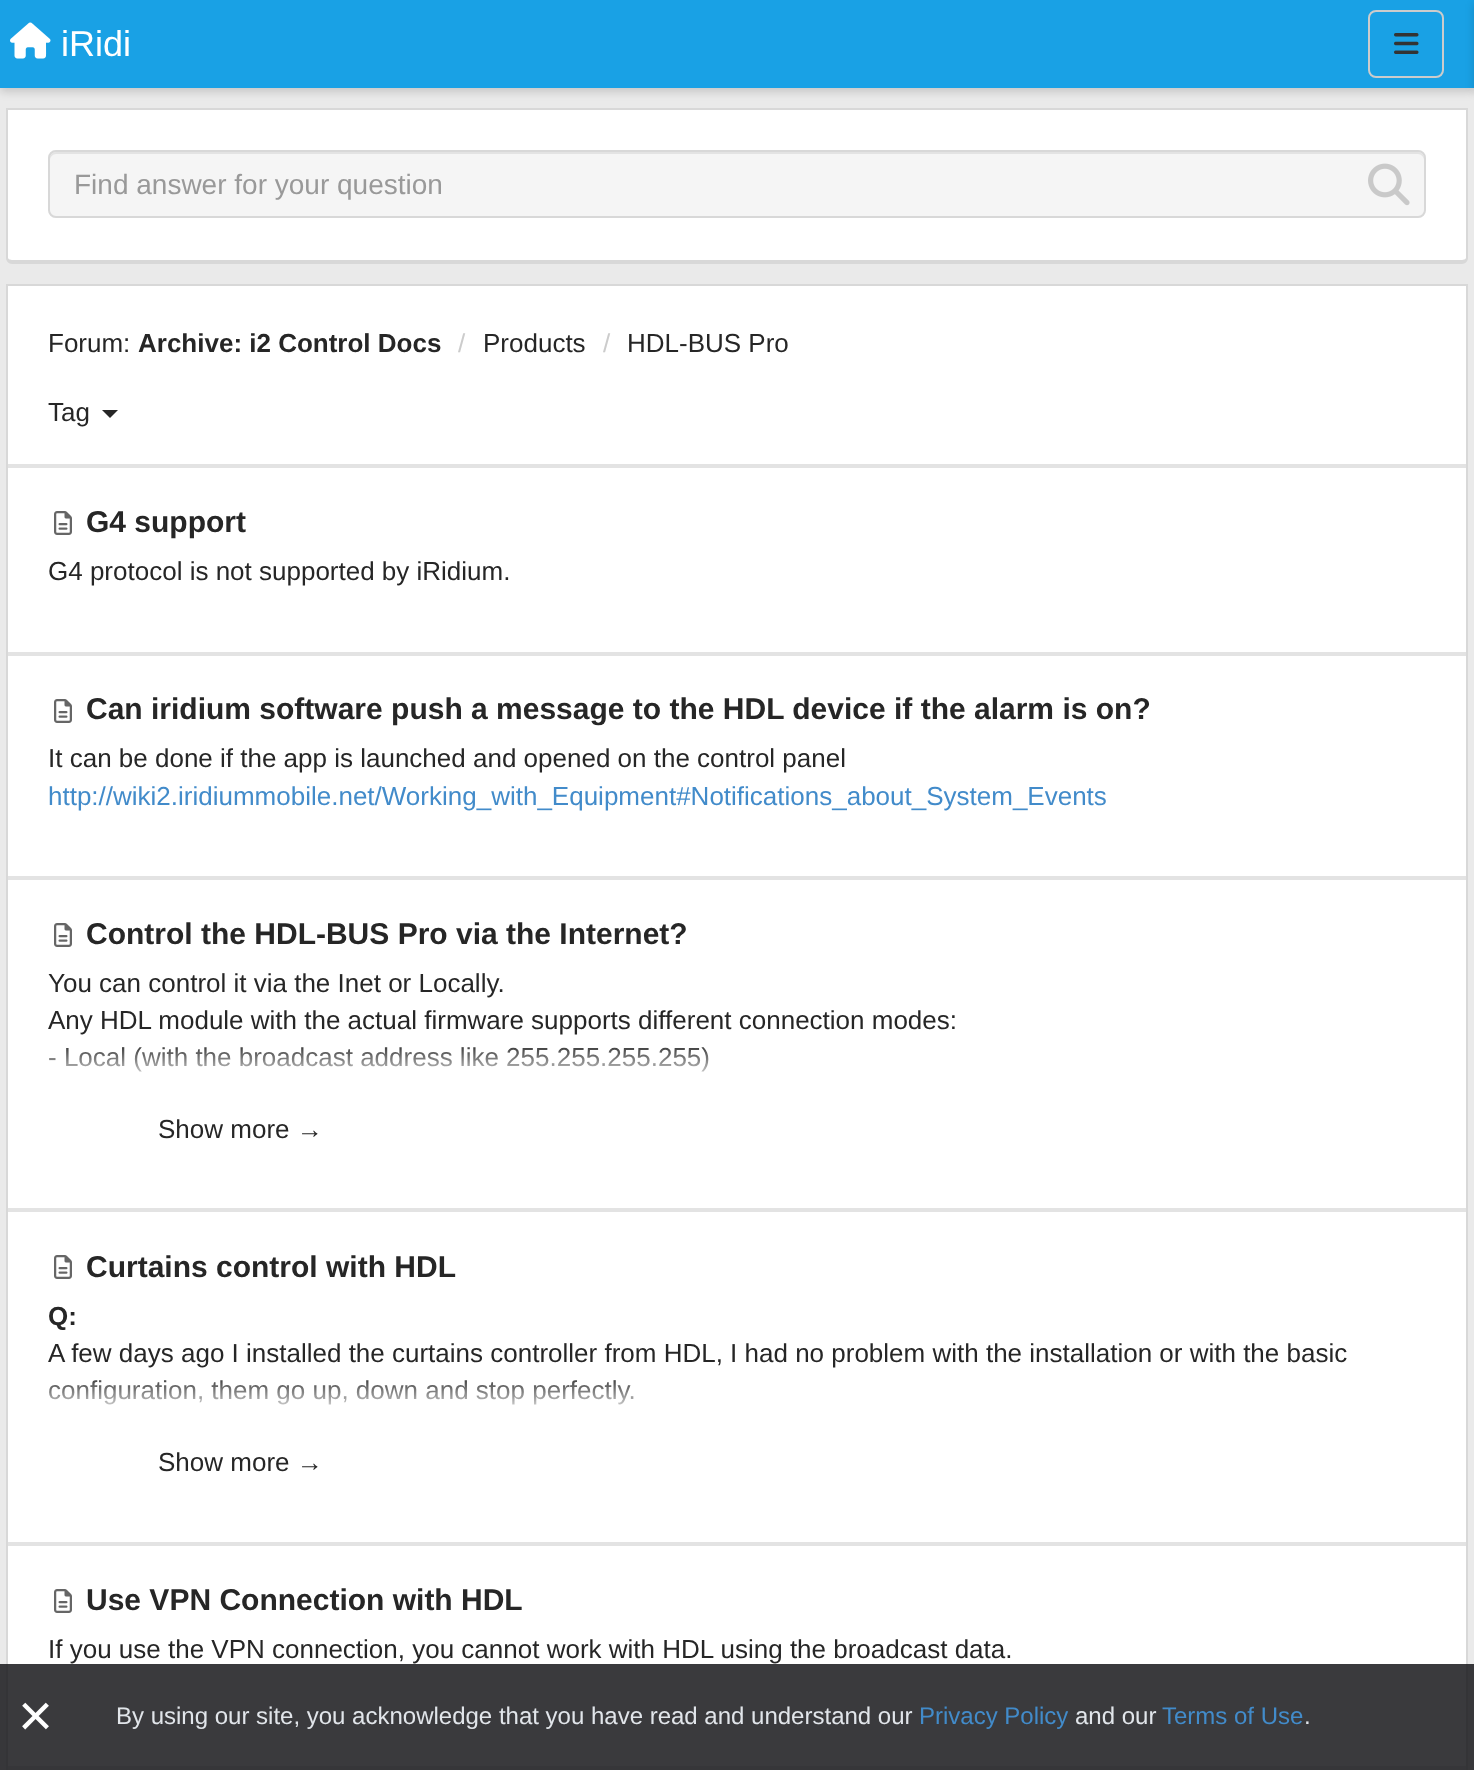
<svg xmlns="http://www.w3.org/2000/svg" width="1474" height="1770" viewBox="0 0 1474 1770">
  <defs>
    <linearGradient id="g1" gradientUnits="userSpaceOnUse" x1="737" y1="1042" x2="737" y2="1102"><stop offset="0" stop-color="#fff" stop-opacity="0"/><stop offset="0.7" stop-color="#fff"/></linearGradient>
    <linearGradient id="g2" gradientUnits="userSpaceOnUse" x1="737" y1="1374" x2="737" y2="1434"><stop offset="0" stop-color="#fff" stop-opacity="0"/><stop offset="0.7" stop-color="#fff"/></linearGradient>
  </defs>
  <rect width="100%" height="100%" fill="#eaeaea"/>
  <path d="M0 4h1474v88H0z" fill="#00000026" filter="blur(4px)"/>
  <path d="M0 0h1474v88H0z" fill="#19a1e5"/>
  <image x="10" y="22" width="41" height="37" href="img/1.png"/>
  <rect x="1369" y="11" width="74" height="66" rx="7" fill="none" stroke="#ccc" stroke-width="2"/>
  <image x="1394" y="33" width="25" height="21" href="img/2.png"/>
  <path d="M1474 4h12v88H1474z" fill="#00000026" filter="blur(4px)"/>
  <path d="M6 108h1462v2H6z" fill="#d8d8d8"/>
  <path d="M8 110H1466V258C1466 259 1464 260 1462 260H12C10 260 8 259 8 258Z" fill="#fff"/>
  <path d="M6 110H1468V258C1468 261 1465 264 1462 264H12C9 264 6 261 6 258ZM8 110H1466V258C1466 259 1464 260 1462 260H12C10 260 8 259 8 258Z" fill="#d8d8d8" fill-rule="evenodd"/>
  <rect x="48" y="150" width="1378" height="68" rx="8" fill="#f5f5f5"/>
  <path d="M56 154H1418C1421 154 1424 157 1424 160V158C1424 155 1421 152 1418 152H56C53 152 50 155 50 158V160C50 157 53 154 56 154Z" fill="#e3e3e3"/>
  <rect x="49" y="151" width="1376" height="66" rx="7" fill="none" stroke="#d8d8d8" stroke-width="2"/>
  <image x="1368" y="163" width="42" height="43" href="img/3.png"/>
  <path d="M6 284h1462v2H6z" fill="#d8d8d8"/>
  <path d="M8 286H1466V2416C1466 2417 1464 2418 1462 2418H12C10 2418 8 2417 8 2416Z" fill="#e3e3e3"/>
  <path d="M6 286H1468V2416C1468 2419 1465 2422 1462 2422H12C9 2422 6 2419 6 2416ZM8 286H1466V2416C1466 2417 1464 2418 1462 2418H12C10 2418 8 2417 8 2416Z" fill="#d8d8d8" fill-rule="evenodd"/>
  <path d="M8 286h1458v178H8z" fill="#fff"/>
  <path d="M102 410H118L110 418Z" fill="#262626"/>
  <path d="M8 468h1458v184H8z" fill="#fff"/>
  <image x="54" y="511" width="18" height="24" href="img/4.png"/>
  <path d="M8 656h1458v220H8z" fill="#fff"/>
  <image x="54" y="699" width="18" height="24" href="img/4.png"/>
  <path d="M8 880h1458v328H8z" fill="#fff"/>
  <image x="54" y="923" width="18" height="24" href="img/4.png"/>
  <path d="M8 1212h1458v330H8z" fill="#fff"/>
  <image x="54" y="1255" width="18" height="24" href="img/4.png"/>
  <path d="M8 1546h1458v220H8z" fill="#fff"/>
  <image x="54" y="1589" width="18" height="24" href="img/4.png"/>
  <path d="M0 1664h1474v106H0z" fill="#17181bd9"/>
  <text x="61" y="56" font-family="Liberation Sans" font-size="36" fill="#fff">iRidi</text>
  <text x="74" y="194" font-family="Liberation Sans" font-size="28" fill="#999">Find answer for your question</text>
  <text x="48" y="352" font-family="Liberation Sans" font-size="26" fill="#262626">Forum:</text>
  <text x="138" y="352" font-family="Liberation Sans" font-size="26" font-weight="bold" fill="#262626">Archive: i2 Control Docs</text>
  <text x="458" y="352" font-family="Liberation Sans" font-size="26" fill="#ccc">/</text>
  <text x="483" y="352" font-family="Liberation Sans" font-size="26" fill="#262626">Products</text>
  <text x="603" y="352" font-family="Liberation Sans" font-size="26" fill="#ccc">/</text>
  <g font-family="Liberation Sans" font-size="26" fill="#262626">
    <text x="627" y="352">HDL-BUS Pro</text>
    <text x="48" y="421">Tag</text>
  </g>
  <text x="86" y="532" font-family="Liberation Sans" font-size="30" font-weight="bold" fill="#262626">G4 support</text>
  <text x="48" y="580" font-family="Liberation Sans" font-size="26" fill="#262626">G4 protocol is not supported by iRidium.</text>
  <text x="86" y="719" font-family="Liberation Sans" font-size="30" font-weight="bold" fill="#262626">Can iridium software push a message to the HDL device if the alarm is on?</text>
  <text x="48" y="767" font-family="Liberation Sans" font-size="26" fill="#262626">It can be done if the app is launched and opened on the control panel</text>
  <text x="48" y="805" font-family="Liberation Sans" font-size="26" fill="#428bca">http://wiki2.iridiummobile.net/Working_with_Equipment#Notifications_about_System_Events</text>
  <text x="86" y="944" font-family="Liberation Sans" font-size="30" font-weight="bold" fill="#262626">Control the HDL-BUS Pro via the Internet?</text>
  <g font-family="Liberation Sans" font-size="26" fill="#262626">
    <text x="48" y="992">You can control it via the Inet or Locally.</text>
    <text x="48" y="1029">Any HDL module with the actual firmware supports different connection modes:</text>
    <text x="48" y="1066">- Local (with the broadcast address like 255.255.255.255)</text>
  </g>
  <path d="M49 1047h660v25H49z" fill="url(#g1)"/>
  <text x="158" y="1138" font-family="Liberation Sans" font-size="26" fill="#262626">Show more →</text>
  <text x="86" y="1277" font-family="Liberation Sans" font-size="30" font-weight="bold" fill="#262626">Curtains control with HDL</text>
  <text x="48" y="1325" font-family="Liberation Sans" font-size="26" font-weight="bold" fill="#262626">Q:</text>
  <g font-family="Liberation Sans" font-size="26" fill="#262626">
    <text x="48" y="1362">A few days ago I installed the curtains controller from HDL, I had no problem with the installation or with the basic</text>
    <text x="48" y="1399">configuration, them go up, down and stop perfectly.</text>
  </g>
  <path d="M49 1380h585v25H49z" fill="url(#g2)"/>
  <text x="158" y="1471" font-family="Liberation Sans" font-size="26" fill="#262626">Show more →</text>
  <text x="86" y="1610" font-family="Liberation Sans" font-size="30" font-weight="bold" fill="#262626">Use VPN Connection with HDL</text>
  <text x="48" y="1658" font-family="Liberation Sans" font-size="26" fill="#262626">If you use the VPN connection, you cannot work with HDL using the broadcast data.</text>
  <text x="18" y="1736" font-family="Liberation Sans" font-size="60" fill="#fff">×</text>
  <text x="116" y="1724" font-family="Liberation Sans" font-size="24" fill="#e1e5ea">By using our site, you acknowledge that you have read and understand our</text>
  <text x="919" y="1724" font-family="Liberation Sans" font-size="24" fill="#428bca">Privacy Policy</text>
  <text x="1075" y="1724" font-family="Liberation Sans" font-size="24" fill="#e1e5ea">and our</text>
  <text x="1162" y="1724" font-family="Liberation Sans" font-size="24" fill="#428bca">Terms of Use</text>
  <text x="1304" y="1724" font-family="Liberation Sans" font-size="24" fill="#e1e5ea">.</text>
</svg>
